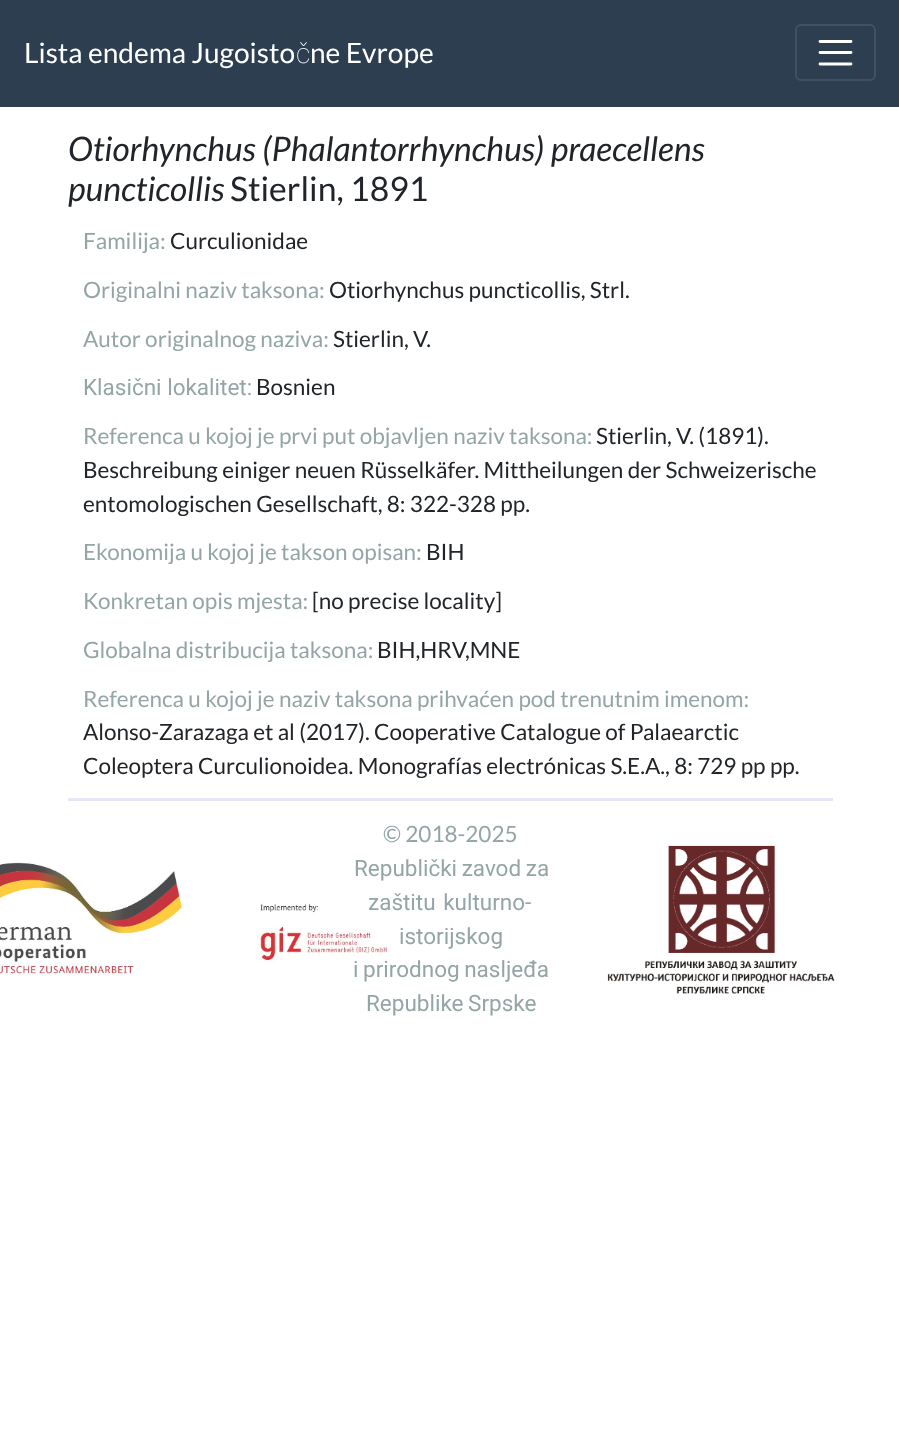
<svg xmlns="http://www.w3.org/2000/svg" width="899" height="1442" viewBox="0 0 899 1442">
  <rect width="100%" height="100%" fill="#fff"/>
  <path d="M0 0h899v107H0z" fill="#2c3e50"/>
  <rect x="796" y="25" width="79" height="55" rx="5" fill="none" stroke="#415162" stroke-width="2"/>
  <path d="M820 41.5H851M820 52.5H851M820 64H851" fill="none" stroke="#fff" stroke-width="2.8" stroke-linecap="round"/>
  <path d="M68 798h765v3H68z" fill="#e6e6fa"/>
  <image x="0" y="862" width="387" height="113" href="img/1.png"/>
  <image x="607" y="845" width="228" height="149" href="img/2.png"/>
  <text x="24" y="63" font-family="Lato" font-size="28.1" fill="#fff">Lista endema Jugoisto</text>
  <text x="296" y="63" font-family="Roboto" font-size="28.1" font-weight="100" fill="#fff">č</text>
  <text x="310" y="63" font-family="Lato" font-size="28.1" fill="#fff">ne Evrope</text>
  <g font-family="Lato" font-size="33.75" font-style="italic" fill="#212529">
    <text x="68" y="161">Otiorhynchus (Phalantorrhynchus) praecellens</text>
    <text x="68" y="201">puncticollis</text>
  </g>
  <text x="230" y="201" font-family="Lato" font-size="33.75" fill="#212529">Stierlin, 1891</text>
  <text x="83" y="249" font-family="Lato" font-size="22.5" fill="#95a5a6">Familija:</text>
  <text x="170" y="249" font-family="Lato" font-size="22.5" fill="#212529">Curculionidae</text>
  <text x="83" y="298" font-family="Lato" font-size="22.5" fill="#95a5a6">Originalni naziv taksona:</text>
  <text x="329" y="298" font-family="Lato" font-size="22.5" fill="#212529">Otiorhynchus puncticollis, Strl.</text>
  <text x="83" y="347" font-family="Lato" font-size="22.5" fill="#95a5a6">Autor originalnog naziva:</text>
  <text x="333" y="347" font-family="Lato" font-size="22.5" fill="#212529">Stierlin, V.</text>
  <text x="83" y="395" font-family="Roboto" font-size="22.5" fill="#95a5a6">Klasični lokalitet:</text>
  <text x="256" y="395" font-family="Lato" font-size="22.5" fill="#212529">Bosnien</text>
  <text x="83" y="444" font-family="Lato" font-size="22.5" fill="#95a5a6">Referenca u kojoj je prvi put objavljen naziv taksona:</text>
  <g font-family="Lato" font-size="22.5" fill="#212529">
    <text x="596" y="444">Stierlin, V. (1891).</text>
    <text x="83" y="478">Beschreibung einiger neuen Rüsselkäfer. Mittheilungen der Schweizerische</text>
    <text x="83" y="512">entomologischen Gesellschaft, 8: 322-328 pp.</text>
  </g>
  <text x="83" y="560" font-family="Lato" font-size="22.5" fill="#95a5a6">Ekonomija u kojoj je takson opisan:</text>
  <text x="426" y="560" font-family="Lato" font-size="22.5" fill="#212529">BIH</text>
  <text x="83" y="609" font-family="Lato" font-size="22.5" fill="#95a5a6">Konkretan opis mjesta:</text>
  <text x="312" y="609" font-family="Lato" font-size="22.5" fill="#212529">[no precise locality]</text>
  <text x="83" y="658" font-family="Lato" font-size="22.5" fill="#95a5a6">Globalna distribucija taksona:</text>
  <text x="377" y="658" font-family="Lato" font-size="22.5" fill="#212529">BIH,HRV,MNE</text>
  <text x="83" y="707" font-family="Lato" font-size="22.5" fill="#95a5a6">Referenca u kojoj je naziv taksona prihvaćen pod trenutnim imenom:</text>
  <g font-family="Lato" font-size="22.5" fill="#212529">
    <text x="83" y="740">Alonso-Zarazaga et al (2017). Cooperative Catalogue of Palaearctic</text>
    <text x="83" y="774">Coleoptera Curculionoidea. Monografías electrónicas S.E.A., 8: 729 pp pp.</text>
  </g>
  <text x="383" y="842" font-family="Lato" font-size="22.5" fill="#95a5a6">© 2018-2025</text>
  <g font-family="Roboto" font-size="22.5" fill="#95a5a6">
    <text x="354" y="876" word-spacing="-1">Republički zavod za</text>
    <text x="368" y="910" word-spacing="2">zaštitu kulturno-</text>
    <text x="399" y="944">istorijskog</text>
    <text x="353" y="977" word-spacing="-1">i prirodnog nasljeđa</text>
    <text x="366" y="1011" word-spacing="-1">Republike Srpske</text>
  </g>
</svg>
